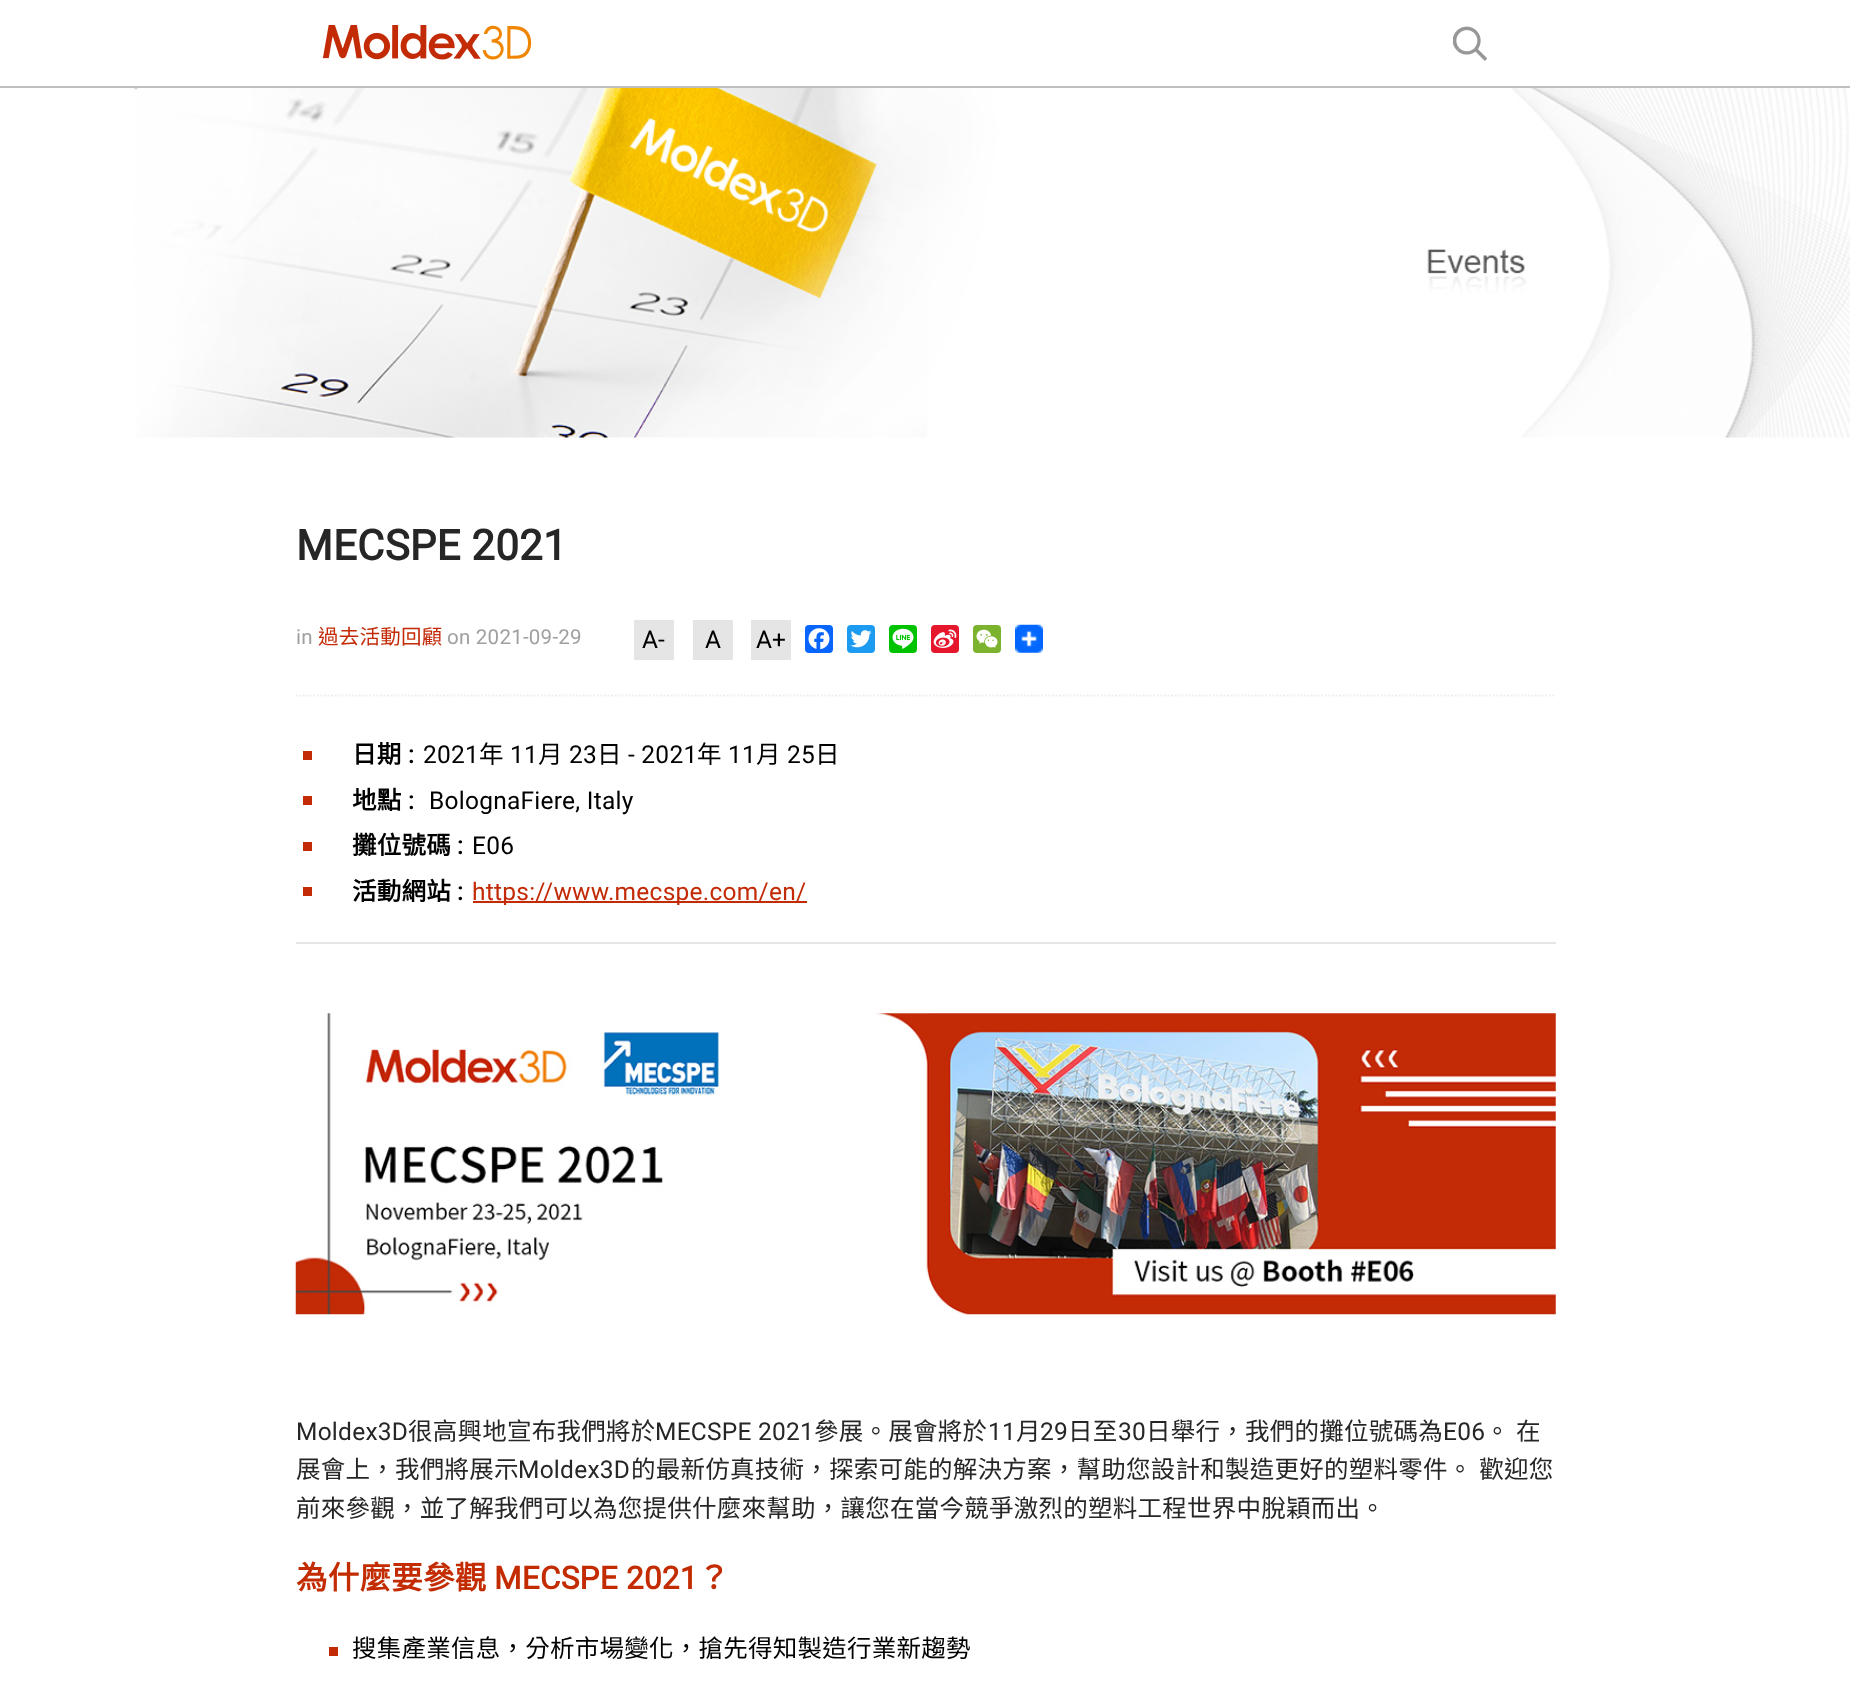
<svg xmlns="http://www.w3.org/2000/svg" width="1850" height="1681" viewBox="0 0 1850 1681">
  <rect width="100%" height="100%" fill="#fff"/>
  <path d="M0 86h1850v2H0z" fill="#bfbfbf"/>
  <image x="322" y="25" width="210" height="35" href="img/1.png"/>
  <image x="1453" y="26" width="35" height="35" href="img/2.png"/>
  <image x="133" y="88" width="1717" height="350" href="img/3.png"/>
  <path d="M296 695.5H1556" fill="none" stroke="#ededed" stroke-width="1.8" stroke-dasharray="1.75 1.75"/>
  <path d="M634 620h40v40H634z" fill="#e5e5e5"/>
  <path d="M693 620h40v40H693z" fill="#e5e5e5"/>
  <path d="M751 620h40v40H751z" fill="#e5e5e5"/>
  <rect x="805" y="625" width="28" height="28" rx="4" fill="#0866ff"/>
  <image x="808" y="628" width="22" height="22" href="img/4.png"/>
  <rect x="847" y="625" width="28" height="28" rx="4" fill="#1d9bf0"/>
  <image x="850" y="630" width="22" height="18" href="img/5.png"/>
  <rect x="889" y="625" width="28" height="28" rx="4" fill="#00c300"/>
  <image x="892" y="628" width="22" height="21" href="img/6.png"/>
  <rect x="931" y="625" width="28" height="28" rx="4" fill="#e6162d"/>
  <image x="933" y="629" width="24" height="19" href="img/7.png"/>
  <rect x="973" y="625" width="28" height="28" rx="4" fill="#7bb32e"/>
  <image x="976" y="629" width="22" height="19" href="img/8.png"/>
  <image x="1015" y="624" width="28" height="29" href="img/9.png"/>
  <path d="M303 751h9v9H303z" fill="#c32b07"/>
  <path d="M303 796h9v9H303z" fill="#c32b07"/>
  <path d="M303 842h9v9H303z" fill="#c32b07"/>
  <path d="M303 887h9v9H303z" fill="#c32b07"/>
  <path d="M473 901h334v2H473z" fill="#c32b07"/>
  <path d="M296 942h1260v2H296z" fill="#e5e5e5"/>
  <image x="295" y="1013" width="1261" height="302" href="img/10.png"/>
  <path d="M329 1647h9v9H329z" fill="#c32b07"/>
  <text x="296" y="560" font-family="Roboto" font-size="42" font-weight="bold" letter-spacing="0.25" fill="#262626">MECSPE 2021</text>
  <text x="296" y="644" font-family="Roboto" font-size="20.5" letter-spacing="0.25" fill="#a0a0a0">in</text>
  <text x="318" y="644" font-family="Noto Sans CJK TC" font-size="20.5" letter-spacing="0.25" fill="#c32b07">過去活動回顧</text>
  <text x="447" y="644" font-family="Roboto" font-size="20.5" letter-spacing="0.25" fill="#a0a0a0">on 2021-09-29</text>
  <g font-family="Roboto" font-size="24.5" fill="#000">
    <text x="642" y="648">A-</text>
    <text x="705" y="648">A</text>
    <text x="756" y="648">A+</text>
  </g>
  <text x="352" y="763" font-family="Noto Sans CJK TC" font-size="24.5" font-weight="bold" letter-spacing="0.25" fill="#000">日期</text>
  <text x="408" y="763" font-family="Roboto" font-size="24.5" font-weight="bold" letter-spacing="0.25" fill="#000">:</text>
  <text x="423" y="763" font-family="Roboto" font-size="24.5" letter-spacing="0.25" fill="#000">2021</text>
  <text x="479" y="763" font-family="Noto Sans CJK TC" font-size="24.5" letter-spacing="0.25" fill="#000">年</text>
  <text x="510" y="763" font-family="Roboto" font-size="24.5" letter-spacing="0.25" fill="#000">11</text>
  <text x="538" y="763" font-family="Noto Sans CJK TC" font-size="24.5" letter-spacing="0.25" fill="#000">月</text>
  <text x="569" y="763" font-family="Roboto" font-size="24.5" letter-spacing="0.25" fill="#000">23</text>
  <text x="597" y="763" font-family="Noto Sans CJK TC" font-size="24.5" letter-spacing="0.25" fill="#000">日</text>
  <text x="628" y="763" font-family="Roboto" font-size="24.5" letter-spacing="0.25" fill="#000">- 2021</text>
  <text x="697" y="763" font-family="Noto Sans CJK TC" font-size="24.5" letter-spacing="0.25" fill="#000">年</text>
  <text x="728" y="763" font-family="Roboto" font-size="24.5" letter-spacing="0.25" fill="#000">11</text>
  <text x="756" y="763" font-family="Noto Sans CJK TC" font-size="24.5" letter-spacing="0.25" fill="#000">月</text>
  <text x="787" y="763" font-family="Roboto" font-size="24.5" letter-spacing="0.25" fill="#000">25</text>
  <text x="815" y="763" font-family="Noto Sans CJK TC" font-size="24.5" letter-spacing="0.25" fill="#000">日</text>
  <text x="352" y="809" font-family="Noto Sans CJK TC" font-size="24.5" font-weight="bold" letter-spacing="0.25" fill="#000">地點</text>
  <text x="408" y="809" font-family="Roboto" font-size="24.5" font-weight="bold" letter-spacing="0.25" fill="#000">:</text>
  <text x="429" y="809" font-family="Roboto" font-size="24.5" letter-spacing="0.25" fill="#000">BolognaFiere, Italy</text>
  <text x="352" y="854" font-family="Noto Sans CJK TC" font-size="24.5" font-weight="bold" letter-spacing="0.25" fill="#000">攤位號碼</text>
  <text x="457" y="854" font-family="Roboto" font-size="24.5" font-weight="bold" letter-spacing="0.25" fill="#000">:</text>
  <text x="472" y="854" font-family="Roboto" font-size="24.5" letter-spacing="0.25" fill="#000">E06</text>
  <text x="352" y="900" font-family="Noto Sans CJK TC" font-size="24.5" font-weight="bold" letter-spacing="0.25" fill="#000">活動網站</text>
  <text x="457" y="900" font-family="Roboto" font-size="24.5" font-weight="bold" letter-spacing="0.25" fill="#000">:</text>
  <text x="472" y="900" font-family="Roboto" font-size="24.5" letter-spacing="0.25" fill="#c32b07">https://www.mecspe.com/en/</text>
  <text x="296" y="1440" font-family="Roboto" font-size="24.5" letter-spacing="0.25" fill="#262626">Moldex3D</text>
  <text x="408" y="1440" font-family="Noto Sans CJK TC" font-size="24.5" letter-spacing="0.25" fill="#262626">很高興地宣布我們將於</text>
  <text x="655" y="1440" font-family="Roboto" font-size="24.5" letter-spacing="0.25" fill="#262626">MECSPE 2021</text>
  <text x="814" y="1440" font-family="Noto Sans CJK TC" font-size="24.5" letter-spacing="0.25" fill="#262626">參展。展會將於</text>
  <text x="988" y="1440" font-family="Roboto" font-size="24.5" letter-spacing="0.25" fill="#262626">11</text>
  <text x="1016" y="1440" font-family="Noto Sans CJK TC" font-size="24.5" letter-spacing="0.25" fill="#262626">月</text>
  <text x="1040" y="1440" font-family="Roboto" font-size="24.5" letter-spacing="0.25" fill="#262626">29</text>
  <text x="1068" y="1440" font-family="Noto Sans CJK TC" font-size="24.5" letter-spacing="0.25" fill="#262626">日至</text>
  <text x="1118" y="1440" font-family="Roboto" font-size="24.5" letter-spacing="0.25" fill="#262626">30</text>
  <text x="1146" y="1440" font-family="Noto Sans CJK TC" font-size="24.5" letter-spacing="0.25" fill="#262626">日舉行，我們的攤位號碼為</text>
  <text x="1443" y="1440" font-family="Roboto" font-size="24.5" letter-spacing="0.25" fill="#262626">E06</text>
  <g font-family="Noto Sans CJK TC" font-size="24.5" letter-spacing="0.25" fill="#262626">
    <text x="1485" y="1440">。</text>
    <text x="1516" y="1440">在</text>
    <text x="296" y="1478">展會上，我們將展示</text>
  </g>
  <text x="518" y="1478" font-family="Roboto" font-size="24.5" letter-spacing="0.25" fill="#262626">Moldex3D</text>
  <g font-family="Noto Sans CJK TC" font-size="24.5" letter-spacing="0.25" fill="#262626">
    <text x="631" y="1478" word-spacing="1">的最新仿真技術，探索可能的解決方案，幫助您設計和製造更好的塑料零件。 歡迎您</text>
    <text x="296" y="1517">前來參觀，並了解我們可以為您提供什麼來幫助，讓您在當今競爭激烈的塑料工程世界中脫穎而出。</text>
  </g>
  <text x="296" y="1589" font-family="Noto Sans CJK TC" font-size="31.5" font-weight="bold" letter-spacing="0.25" fill="#c32b00">為什麼要參觀</text>
  <text x="494" y="1589" font-family="Roboto" font-size="31.5" font-weight="bold" letter-spacing="0.25" fill="#c32b00">MECSPE 2021</text>
  <text x="698" y="1589" font-family="Noto Sans CJK TC" font-size="31.5" font-weight="bold" letter-spacing="0.25" fill="#c32b00">？</text>
  <text x="352" y="1657" font-family="Noto Sans CJK TC" font-size="24.5" letter-spacing="0.25" fill="#000">搜集產業信息，分析市場變化，搶先得知製造行業新趨勢</text>
</svg>
